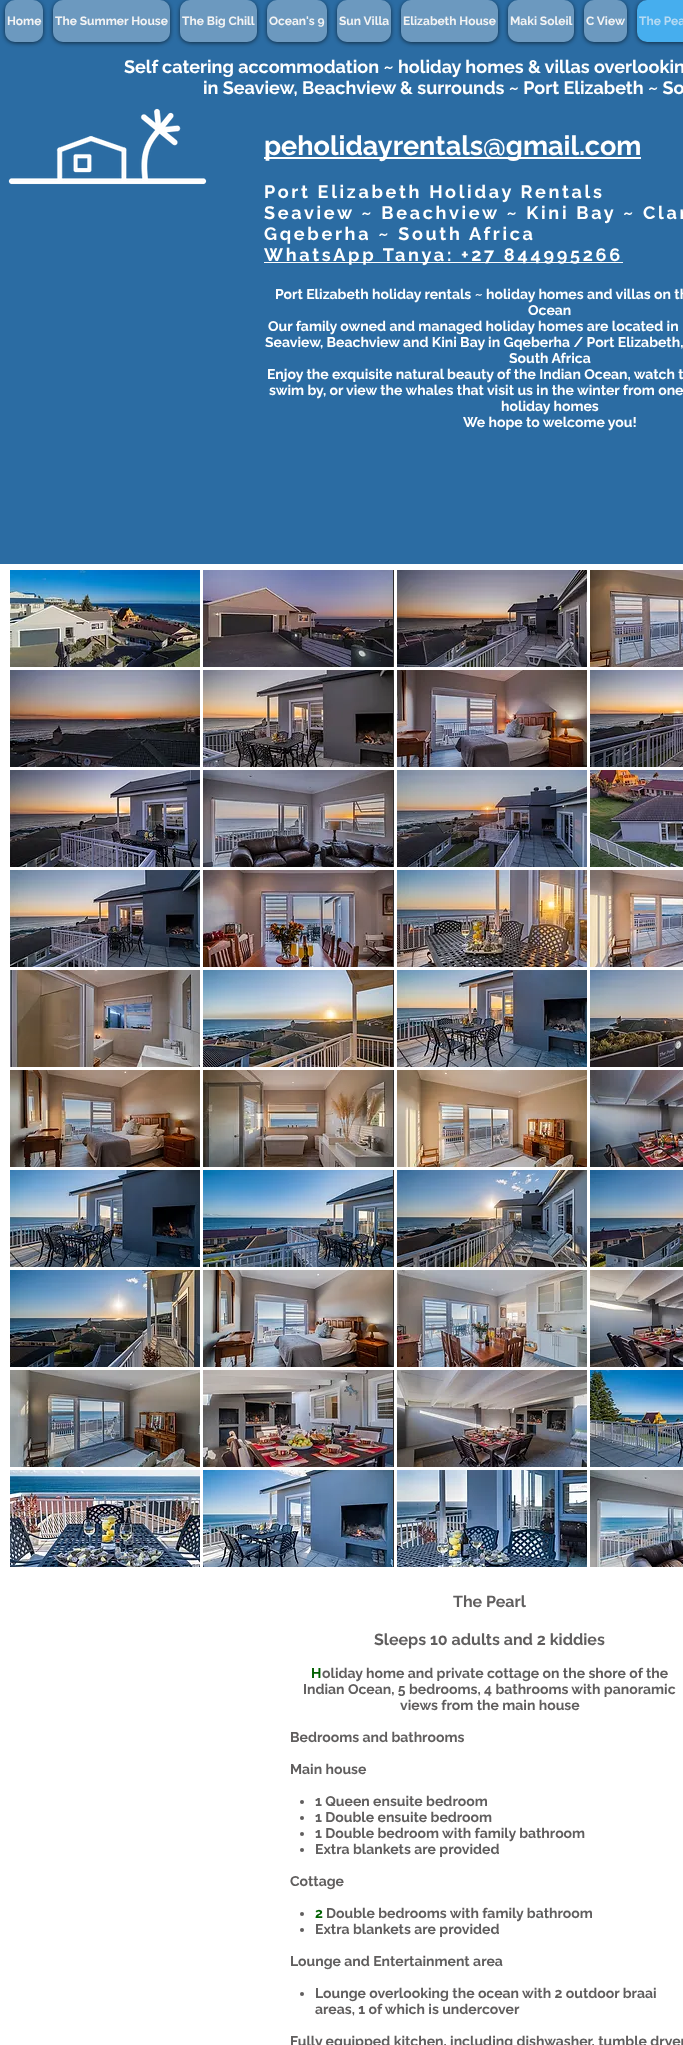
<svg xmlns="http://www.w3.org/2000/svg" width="683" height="2045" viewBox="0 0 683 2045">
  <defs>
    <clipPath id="clip1"><path d="M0 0H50V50H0ZM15 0H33C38.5 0 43 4.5 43 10V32C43 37.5 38.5 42 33 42H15C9.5 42 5 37.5 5 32V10C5 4.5 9.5 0 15 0Z" clip-rule="evenodd"/></clipPath>
    <clipPath id="clip2"><path d="M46 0H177V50H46ZM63 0H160C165.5 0 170 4.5 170 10V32C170 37.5 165.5 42 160 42H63C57.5 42 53 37.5 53 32V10C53 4.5 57.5 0 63 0Z" clip-rule="evenodd"/></clipPath>
    <clipPath id="clip3"><path d="M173 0H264V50H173ZM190 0H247C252.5 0 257 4.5 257 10V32C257 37.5 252.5 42 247 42H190C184.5 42 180 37.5 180 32V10C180 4.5 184.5 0 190 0Z" clip-rule="evenodd"/></clipPath>
    <clipPath id="clip4"><path d="M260 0H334V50H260ZM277 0H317C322.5 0 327 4.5 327 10V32C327 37.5 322.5 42 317 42H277C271.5 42 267 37.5 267 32V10C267 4.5 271.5 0 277 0Z" clip-rule="evenodd"/></clipPath>
    <clipPath id="clip5"><path d="M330 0H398V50H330ZM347 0H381C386.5 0 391 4.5 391 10V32C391 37.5 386.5 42 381 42H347C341.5 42 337 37.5 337 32V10C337 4.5 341.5 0 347 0Z" clip-rule="evenodd"/></clipPath>
    <clipPath id="clip6"><path d="M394 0H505V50H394ZM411 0H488C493.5 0 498 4.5 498 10V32C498 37.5 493.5 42 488 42H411C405.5 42 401 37.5 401 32V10C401 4.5 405.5 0 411 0Z" clip-rule="evenodd"/></clipPath>
    <clipPath id="clip7"><path d="M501 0H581V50H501ZM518 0H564C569.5 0 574 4.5 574 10V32C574 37.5 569.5 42 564 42H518C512.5 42 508 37.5 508 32V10C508 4.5 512.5 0 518 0Z" clip-rule="evenodd"/></clipPath>
    <clipPath id="clip8"><path d="M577 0H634V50H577ZM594 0H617C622.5 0 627 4.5 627 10V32C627 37.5 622.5 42 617 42H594C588.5 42 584 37.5 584 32V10C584 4.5 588.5 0 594 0Z" clip-rule="evenodd"/></clipPath>
  </defs>
  <rect width="100%" height="100%" fill="#fff"/>
  <path d="M0 0h683v564H0z" fill="#2b6ca3"/>
  <g clip-path="url(#clip1)">
    <rect x="5" y="1" width="38" height="42" rx="10" fill="#00000099" filter="blur(2px)"/>
  </g>
  <rect x="5" width="38" height="42" rx="10" fill="#ffffff4f"/>
  <g clip-path="url(#clip2)">
    <rect x="53" y="1" width="117" height="42" rx="10" fill="#00000099" filter="blur(2px)"/>
  </g>
  <rect x="53" width="117" height="42" rx="10" fill="#ffffff4f"/>
  <g clip-path="url(#clip3)">
    <rect x="180" y="1" width="77" height="42" rx="10" fill="#00000099" filter="blur(2px)"/>
  </g>
  <rect x="180" width="77" height="42" rx="10" fill="#ffffff4f"/>
  <g clip-path="url(#clip4)">
    <rect x="267" y="1" width="60" height="42" rx="10" fill="#00000099" filter="blur(2px)"/>
  </g>
  <rect x="267" width="60" height="42" rx="10" fill="#ffffff4f"/>
  <g clip-path="url(#clip5)">
    <rect x="337" y="1" width="54" height="42" rx="10" fill="#00000099" filter="blur(2px)"/>
  </g>
  <rect x="337" width="54" height="42" rx="10" fill="#ffffff4f"/>
  <g clip-path="url(#clip6)">
    <rect x="401" y="1" width="97" height="42" rx="10" fill="#00000099" filter="blur(2px)"/>
  </g>
  <rect x="401" width="97" height="42" rx="10" fill="#ffffff4f"/>
  <g clip-path="url(#clip7)">
    <rect x="508" y="1" width="66" height="42" rx="10" fill="#00000099" filter="blur(2px)"/>
  </g>
  <rect x="508" width="66" height="42" rx="10" fill="#ffffff4f"/>
  <g clip-path="url(#clip8)">
    <rect x="584" y="1" width="43" height="42" rx="10" fill="#00000099" filter="blur(2px)"/>
  </g>
  <rect x="584" width="43" height="42" rx="10" fill="#ffffff4f"/>
  <rect x="637" y="1" width="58" height="42" rx="10" fill="#00000099" filter="blur(2px)"/>
  <rect x="637" width="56" height="42" rx="10" fill="#46aeee"/>
  <image x="8" y="108" width="199" height="77" href="img/1.png"/>
  <path d="M264 157h377v2H264z" fill="#fff"/>
  <path d="M264 262h359v1H264z" fill="#fff"/>
  <image x="10" y="570" width="190" height="97" href="img/2.png"/>
  <path d="M393 570h1v97H393z" fill="#2f2e2e"/>
  <image x="203" y="570" width="190" height="97" href="img/3.png"/>
  <image x="397" y="570" width="190" height="97" href="img/4.png"/>
  <image x="590" y="570" width="93" height="97" href="img/5.png"/>
  <image x="10" y="670" width="190" height="97" href="img/6.png"/>
  <path d="M393 670h1v97H393z" fill="#2f2e2e"/>
  <image x="203" y="670" width="190" height="97" href="img/7.png"/>
  <image x="397" y="670" width="190" height="97" href="img/8.png"/>
  <image x="590" y="670" width="93" height="97" href="img/9.png"/>
  <image x="10" y="770" width="190" height="97" href="img/10.png"/>
  <path d="M393 770h1v97H393z" fill="#2f2e2e"/>
  <image x="203" y="770" width="190" height="97" href="img/11.png"/>
  <image x="397" y="770" width="190" height="97" href="img/12.png"/>
  <image x="590" y="770" width="93" height="97" href="img/13.png"/>
  <image x="10" y="870" width="190" height="97" href="img/14.png"/>
  <path d="M393 870h1v97H393z" fill="#2f2e2e"/>
  <image x="203" y="870" width="190" height="97" href="img/15.png"/>
  <image x="397" y="870" width="190" height="97" href="img/16.png"/>
  <image x="590" y="870" width="93" height="97" href="img/17.png"/>
  <image x="10" y="970" width="190" height="97" href="img/18.png"/>
  <path d="M393 970h1v97H393z" fill="#2f2e2e"/>
  <image x="203" y="970" width="190" height="97" href="img/19.png"/>
  <image x="397" y="970" width="190" height="97" href="img/20.png"/>
  <image x="590" y="970" width="93" height="97" href="img/21.png"/>
  <image x="10" y="1070" width="190" height="97" href="img/22.png"/>
  <path d="M393 1070h1v97H393z" fill="#2f2e2e"/>
  <image x="203" y="1070" width="190" height="97" href="img/23.png"/>
  <image x="397" y="1070" width="190" height="97" href="img/24.png"/>
  <image x="590" y="1070" width="93" height="97" href="img/25.png"/>
  <image x="10" y="1170" width="190" height="97" href="img/26.png"/>
  <path d="M393 1170h1v97H393z" fill="#2f2e2e"/>
  <image x="203" y="1170" width="190" height="97" href="img/27.png"/>
  <image x="397" y="1170" width="190" height="97" href="img/28.png"/>
  <image x="590" y="1170" width="93" height="97" href="img/29.png"/>
  <image x="10" y="1270" width="190" height="97" href="img/30.png"/>
  <path d="M393 1270h1v97H393z" fill="#2f2e2e"/>
  <image x="203" y="1270" width="190" height="97" href="img/31.png"/>
  <image x="397" y="1270" width="190" height="97" href="img/32.png"/>
  <image x="590" y="1270" width="93" height="97" href="img/33.png"/>
  <image x="10" y="1370" width="190" height="97" href="img/34.png"/>
  <path d="M393 1370h1v97H393z" fill="#2f2e2e"/>
  <image x="203" y="1370" width="190" height="97" href="img/35.png"/>
  <image x="397" y="1370" width="190" height="97" href="img/36.png"/>
  <image x="590" y="1370" width="93" height="97" href="img/37.png"/>
  <image x="10" y="1470" width="190" height="97" href="img/38.png"/>
  <path d="M393 1470h1v97H393z" fill="#2f2e2e"/>
  <image x="203" y="1470" width="190" height="97" href="img/39.png"/>
  <image x="397" y="1470" width="190" height="97" href="img/40.png"/>
  <image x="590" y="1470" width="93" height="97" href="img/41.png"/>
  <circle cx="302" cy="1802" r="2" fill="#605e5e"/>
  <circle cx="302" cy="1818" r="2" fill="#605e5e"/>
  <circle cx="302" cy="1834" r="2" fill="#605e5e"/>
  <circle cx="302" cy="1850" r="2" fill="#605e5e"/>
  <circle cx="302" cy="1914" r="2" fill="#605e5e"/>
  <circle cx="302" cy="1930" r="2" fill="#605e5e"/>
  <circle cx="302" cy="1994" r="2" fill="#605e5e"/>
  <g font-family="Raleway" font-size="12" font-weight="bold" fill="#f4f4f4">
    <text x="7" y="25">Home</text>
    <text x="55" y="25">The Summer House</text>
    <text x="182" y="25">The Big Chill</text>
    <text x="269" y="25">Ocean's 9</text>
    <text x="339" y="25">Sun Villa</text>
    <text x="403" y="25">Elizabeth House</text>
    <text x="510" y="25">Maki Soleil</text>
    <text x="586" y="25">C View</text>
  </g>
  <text x="639" y="25" font-family="Raleway" font-size="12" font-weight="bold" fill="#b5daf3">The Pea</text>
  <g font-family="Raleway" font-size="18" font-weight="bold" fill="#fff">
    <text x="124" y="73">Self catering accommodation ~ holiday homes &amp; villas overlookin</text>
    <text x="203" y="94">in Seaview, Beachview &amp; surrounds ~ Port Elizabeth ~ So</text>
  </g>
  <text x="264" y="155" font-family="Raleway" font-size="27" font-weight="bold" fill="#fff">peholidayrentals@gmail.com</text>
  <g font-family="Raleway" font-size="18" font-weight="bold" letter-spacing="2.7" fill="#fff">
    <text x="264" y="198">Port Elizabeth Holiday Rentals</text>
    <text x="264" y="219">Seaview ~ Beachview ~ Kini Bay ~ Clar</text>
    <text x="264" y="240">Gqeberha ~ South Africa</text>
    <text x="264" y="261">WhatsApp Tanya: +27 844995266</text>
  </g>
  <g font-family="Raleway" font-size="14" font-weight="bold" fill="#fff">
    <text x="275" y="299">Port Elizabeth holiday rentals ~ holiday homes and villas on th</text>
    <text x="528" y="315">Ocean</text>
    <text x="268" y="331">Our family owned and managed holiday homes are located in</text>
    <text x="265" y="347">Seaview, Beachview and Kini Bay in Gqeberha / Port Elizabeth,</text>
    <text x="509" y="363">South Africa</text>
    <text x="267" y="379">Enjoy the exquisite natural beauty of the Indian Ocean, watch t</text>
    <text x="269" y="395">swim by, or view the whales that visit us in the winter from one</text>
    <text x="501" y="411">holiday homes</text>
    <text x="463" y="427">We hope to welcome you!</text>
  </g>
  <g font-family="Raleway" font-size="16" font-weight="bold" fill="#605e5e">
    <text x="453" y="1607">The Pearl</text>
    <text x="374" y="1645">Sleeps 10 adults and 2 kiddies</text>
  </g>
  <text x="311" y="1678" font-family="Raleway" font-size="14" font-weight="bold" fill="#006000">H</text>
  <g font-family="Raleway" font-size="14" font-weight="bold" fill="#605e5e">
    <text x="322" y="1678">oliday home and private cottage on the shore of the</text>
    <text x="303" y="1694">Indian Ocean, 5 bedrooms, 4 bathrooms with panoramic</text>
    <text x="400" y="1710">views from the main house</text>
    <text x="290" y="1742">Bedrooms and bathrooms</text>
    <text x="290" y="1774">Main house</text>
    <text x="315" y="1806">1 Queen ensuite bedroom</text>
    <text x="315" y="1822">1 Double ensuite bedroom</text>
    <text x="315" y="1838">1 Double bedroom with family bathroom</text>
    <text x="315" y="1854">Extra blankets are provided</text>
    <text x="290" y="1886">Cottage</text>
  </g>
  <text x="315" y="1918" font-family="Raleway" font-size="14" font-weight="bold" fill="#006000">2</text>
  <g font-family="Raleway" font-size="14" font-weight="bold" fill="#605e5e">
    <text x="326" y="1918">Double bedrooms with family bathroom</text>
    <text x="315" y="1934">Extra blankets are provided</text>
    <text x="290" y="1966">Lounge and Entertainment area</text>
    <text x="315" y="1998">Lounge overlooking the ocean with 2 outdoor braai</text>
    <text x="315" y="2014">areas, 1 of which is undercover</text>
    <text x="290" y="2046">Fully equipped kitchen, including dishwasher, tumble dryer</text>
  </g>
</svg>
